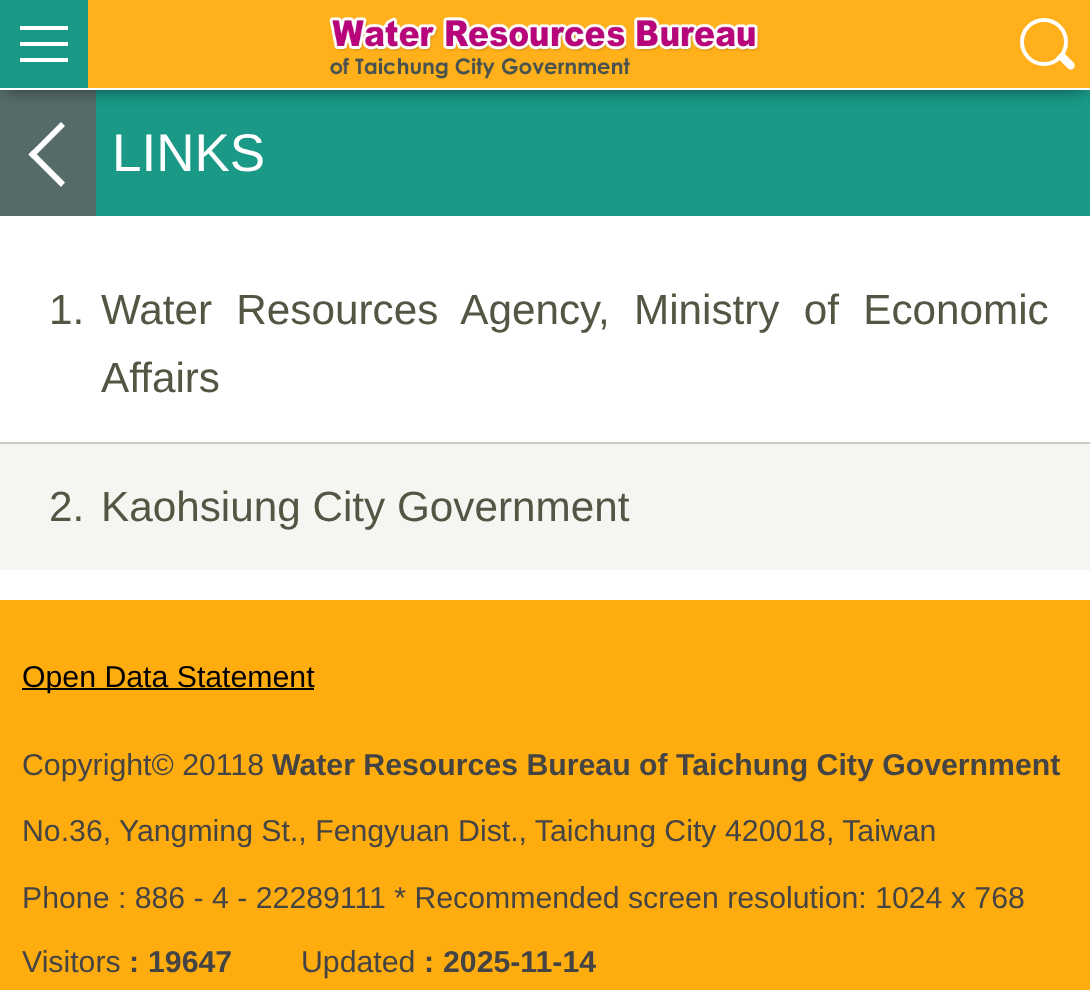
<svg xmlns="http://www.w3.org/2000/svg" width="1090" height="990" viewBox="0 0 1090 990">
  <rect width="100%" height="100%" fill="#fff"/>
  <path d="M96 90h994v126H96z" fill="#199986"/>
  <path d="M0 90h96v126H0z" fill="#556b69"/>
  <path d="M6 12h1078v78H6z" fill="#00000080" filter="blur(8px)"/>
  <path d="M88 0h1002v88H88z" fill="#ffb01a"/>
  <path d="M0 88h1090v2H0z" fill="#fff"/>
  <path d="M0 0h88v88H0z" fill="#199986"/>
  <path d="M20 26h48v4H20z" fill="#fff"/>
  <path d="M20 58h48v4H20z" fill="#fff"/>
  <path d="M20 42h48v4H20z" fill="#fff"/>
  <image x="329" y="17" width="430" height="62" href="img/1.png"/>
  <circle cx="1044" cy="42" r="22" fill="none" stroke="#fff" stroke-width="4"/>
  <path d="M1062.5 51.5L1073.5 62.5C1075 64 1075 66.5 1073.5 68.5C1072 70 1069.5 70 1068 68.5L1056.5 57Z" fill="#fff"/>
  <path d="M32.5 150L65 182.5L61 187L28.5 154.5Z" fill="#fff"/>
  <path d="M61 122L65 126L32.5 158.5L28.5 154.5Z" fill="#fff"/>
  <path d="M0 442h1090v2H0z" fill="#c7cdbe"/>
  <path d="M0 444h1090v126H0z" fill="#f5f6f1"/>
  <path d="M0 600h1090v390H0z" fill="#ffac0e"/>
  <path d="M22 688h292v2H22z" fill="#000"/>
  <text x="112" y="171" font-family="Liberation Sans" font-size="53" fill="#fff">LINKS</text>
  <g font-family="Liberation Sans" font-size="42.25" fill="#554">
    <text x="49" y="324">1.</text>
    <text x="101" y="324" word-spacing="12.5">Water Resources Agency, Ministry of Economic</text>
    <text x="101" y="392">Affairs</text>
    <text x="49" y="521">2.</text>
    <text x="101" y="521">Kaohsiung City Government</text>
  </g>
  <text x="22" y="687" font-family="Liberation Sans" font-size="30.25" fill="#000">Open Data Statement</text>
  <text x="22" y="775" font-family="Liberation Sans" font-size="30.25" fill="#444">Copyright© 20118</text>
  <text x="272" y="775" font-family="Liberation Sans" font-size="30.25" font-weight="bold" fill="#444">Water Resources Bureau of Taichung City Government</text>
  <g font-family="Liberation Sans" font-size="30.25" fill="#444">
    <text x="22" y="841">No.36, Yangming St., Fengyuan Dist., Taichung City</text>
    <text x="725" y="841">420018, Taiwan</text>
    <text x="22" y="908">Phone : 886 - 4 - 22289111 * Recommended screen resolution: 1024 x 768</text>
    <text x="22" y="972">Visitors</text>
  </g>
  <g font-family="Liberation Sans" font-size="30.25" font-weight="bold" fill="#444">
    <text x="129" y="972">:</text>
    <text x="148" y="972">19647</text>
  </g>
  <text x="301" y="972" font-family="Liberation Sans" font-size="30.25" fill="#444">Updated</text>
  <g font-family="Liberation Sans" font-size="30.25" font-weight="bold" fill="#444">
    <text x="424" y="972">:</text>
    <text x="443" y="972">2025-11-14</text>
  </g>
</svg>
